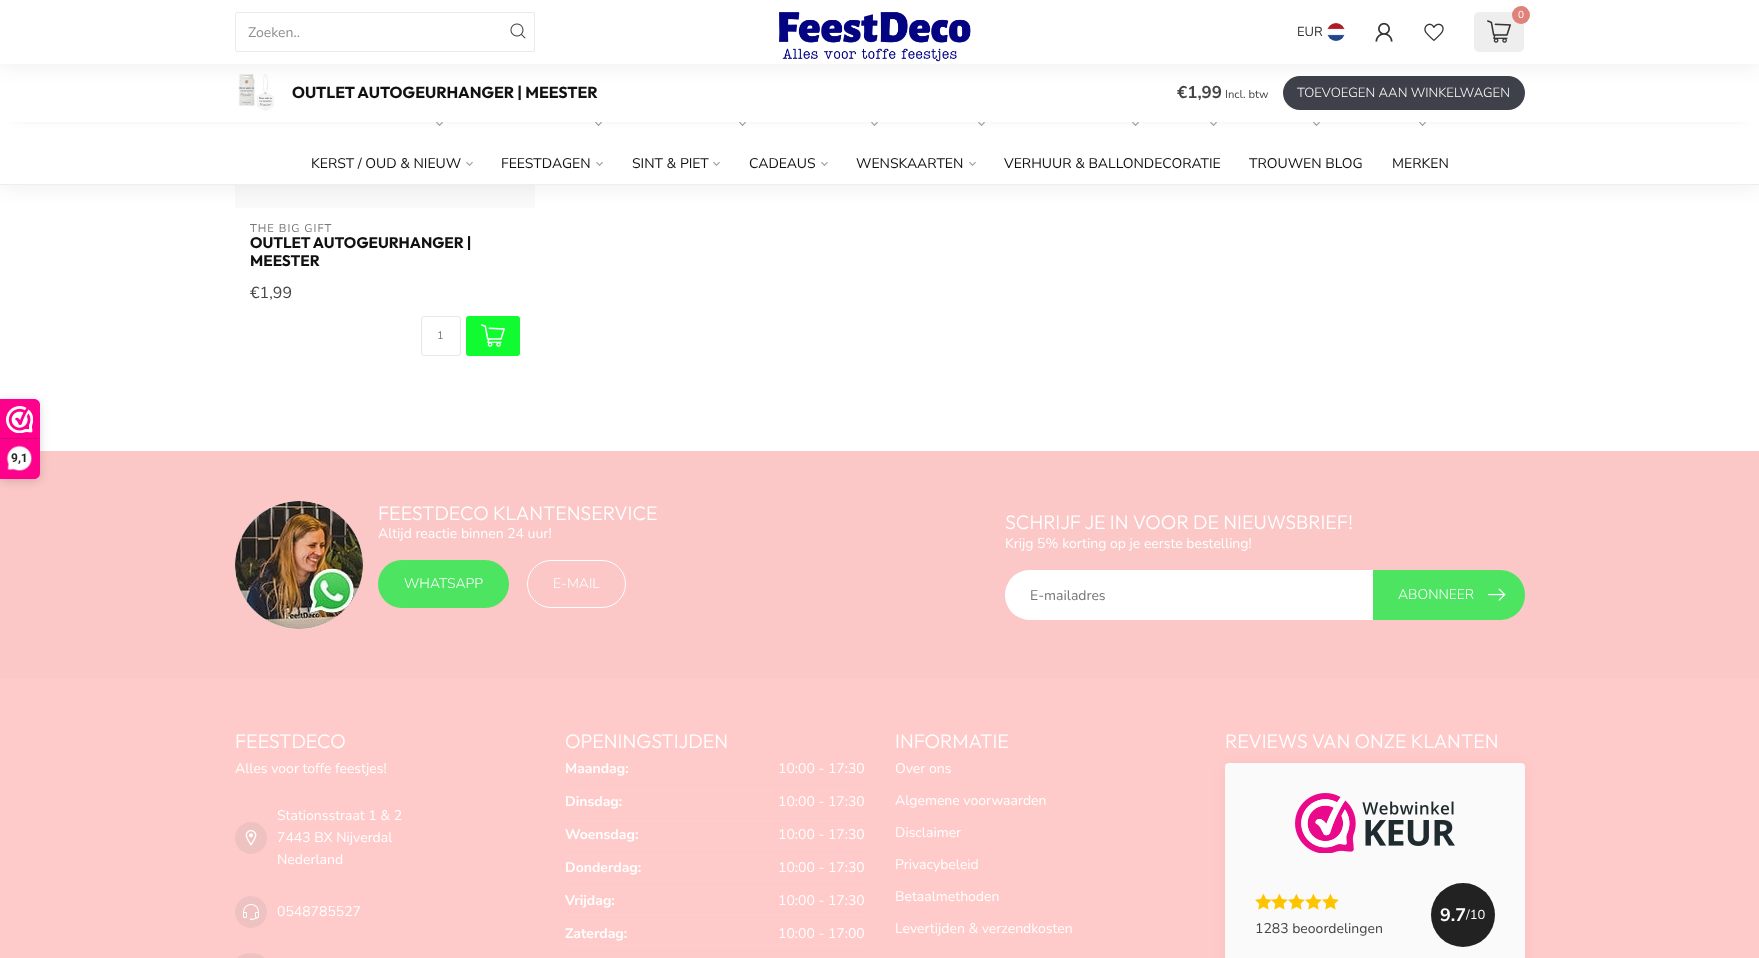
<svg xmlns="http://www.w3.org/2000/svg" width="1759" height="958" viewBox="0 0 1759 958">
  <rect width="100%" height="100%" fill="#fff"/>
  <path d="M235 185h300v23H235z" fill="#f9f9f9"/>
  <path d="M0 64h1759v121H0z" fill="#00000014" filter="blur(11px)"/>
  <path d="M0 122h1759v62H0z" fill="#fff"/>
  <image x="436" y="122" width="7" height="4" href="img/8.png"/>
  <image x="595" y="122" width="7" height="4" href="img/8.png"/>
  <image x="739" y="122" width="7" height="4" href="img/8.png"/>
  <image x="871" y="122" width="7" height="4" href="img/8.png"/>
  <image x="978" y="122" width="7" height="4" href="img/8.png"/>
  <image x="1132" y="122" width="7" height="4" href="img/8.png"/>
  <image x="1210" y="122" width="7" height="4" href="img/8.png"/>
  <image x="1313" y="122" width="7" height="4" href="img/8.png"/>
  <image x="1419" y="122" width="7" height="4" href="img/8.png"/>
  <path d="M14 80h1731v30H14z" fill="#444" filter="blur(7.5px)"/>
  <path d="M0 64h1759v58H0z" fill="#fff"/>
  <image x="238" y="74" width="36" height="37" href="img/7.png"/>
  <rect x="1283" y="76" width="242" height="34" rx="17" fill="#3e414a"/>
  <path d="M0 -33h1759v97H0z" fill="#00000014" filter="blur(11px)"/>
  <path d="M0 0h1759v64H0z" fill="#fff"/>
  <rect x="235.5" y="12.5" width="299" height="39" rx="1.5" fill="none" stroke="#eaeaea"/>
  <image x="510" y="23" width="16" height="16" href="img/1.png"/>
  <image x="779" y="12" width="192" height="50" href="img/2.png"/>
  <rect x="1474" y="12" width="50" height="40" rx="5" fill="#eee"/>
  <circle cx="1521" cy="15" r="9" fill="#df8279"/>
  <image x="1487" y="20" width="24" height="23" href="img/3.png"/>
  <image x="1327" y="23" width="18" height="18" href="img/4.png"/>
  <image x="1375" y="22" width="18" height="20" href="img/5.png"/>
  <image x="1424" y="23" width="20" height="18" href="img/6.png"/>
  <path d="M0 184h1759v1H0z" fill="#eee"/>
  <image x="466" y="161" width="7" height="5" href="img/9.png"/>
  <image x="596" y="161" width="7" height="5" href="img/9.png"/>
  <image x="713" y="161" width="7" height="5" href="img/9.png"/>
  <image x="821" y="161" width="7" height="5" href="img/9.png"/>
  <image x="969" y="161" width="7" height="5" href="img/9.png"/>
  <rect x="421.5" y="316.5" width="39" height="39" rx="2.5" fill="none" stroke="#e7e7e7"/>
  <rect x="466" y="316" width="54" height="40" rx="3" fill="#10fc31"/>
  <image x="481" y="324" width="24" height="23" href="img/10.png"/>
  <path d="M0 451h1759v228H0z" fill="#fbc7c7"/>
  <rect y="401" width="40" height="80" rx="6" fill="#00000026" filter="blur(5px)"/>
  <path d="M0 399H34C37.5 399 40 401.5 40 405V473C40 476.5 37.5 479 34 479H0Z" fill="#fe008c"/>
  <image x="6" y="406" width="27" height="27" href="img/11.png"/>
  <path d="M0 438h39v1H0z" fill="#d80077"/>
  <image x="6" y="445" width="26" height="26" href="img/12.png"/>
  <path d="M0 679h1759v279H0z" fill="#ffcaca"/>
  <image x="235" y="501" width="128" height="128" href="img/13.png"/>
  <rect x="378" y="560" width="131" height="48" rx="24" fill="#4de461"/>
  <rect x="527.5" y="560.5" width="98" height="47" rx="23.5" fill="none" stroke="#fff"/>
  <path d="M1030 570H1373V620H1030C1016 620 1005 609 1005 595C1005 581 1016 570 1030 570Z" fill="#fff"/>
  <path d="M1373 570H1500C1514 570 1525 581 1525 595C1525 609 1514 620 1500 620H1373Z" fill="#4de461"/>
  <image x="1488" y="588" width="18" height="13" href="img/14.png"/>
  <circle cx="251" cy="838" r="16" fill="#efc2c2"/>
  <image x="245" y="830" width="12" height="16" href="img/15.png"/>
  <circle cx="251" cy="912" r="16" fill="#efc2c2"/>
  <image x="243" y="904" width="16" height="16" href="img/16.png"/>
  <rect x="235" y="953" width="32" height="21" rx="16" fill="#efc2c2"/>
  <path d="M565 785h300v1H565z" fill="#fac8c8"/>
  <path d="M565 818h300v1H565z" fill="#fac8c8"/>
  <path d="M565 851h300v1H565z" fill="#fac8c8"/>
  <path d="M565 884h300v1H565z" fill="#fac8c8"/>
  <path d="M565 917h300v1H565z" fill="#fac8c8"/>
  <path d="M565 950h300v1H565z" fill="#fac8c8"/>
  <path d="M1230 768h290v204H1230z" fill="#00000014" filter="blur(9px)"/>
  <rect x="1225" y="763" width="300" height="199" rx="4" fill="#fafafa"/>
  <image x="1295" y="793" width="160" height="60" href="img/17.png"/>
  <circle cx="1463" cy="915" r="32" fill="#222"/>
  <image x="1255" y="893" width="17" height="17" href="img/18.png"/>
  <image x="1271" y="893" width="17" height="17" href="img/19.png"/>
  <image x="1288" y="893" width="17" height="17" href="img/18.png"/>
  <image x="1305" y="893" width="17" height="17" href="img/18.png"/>
  <image x="1322" y="893" width="17" height="17" href="img/18.png"/>
  <text x="248" y="37" font-family="Nunito Sans" font-size="14" fill="#8f8f8f">Zoeken..</text>
  <text x="1518" y="18" font-family="Nunito Sans" font-size="10" fill="#fff">0</text>
  <text x="1297" y="36" font-family="Nunito Sans" font-size="13" fill="#333">EUR</text>
  <text x="292" y="98" font-family="Outfit" font-size="16" font-weight="bold" fill="#111">OUTLET AUTOGEURHANGER | MEESTER</text>
  <text x="1177" y="98" font-family="Nunito Sans" font-size="17" font-weight="bold" fill="#444">€1,99</text>
  <text x="1225" y="98" font-family="Nunito Sans" font-size="11.25" fill="#444">Incl. btw</text>
  <text x="1297" y="97" font-family="Nunito Sans" font-size="13.25" font-weight="300" fill="#fff">TOEVOEGEN AAN WINKELWAGEN</text>
  <g font-family="Nunito Sans" font-size="14" fill="#111">
    <text x="311" y="168">KERST / OUD &amp; NIEUW</text>
    <text x="501" y="168">FEESTDAGEN</text>
    <text x="632" y="168">SINT &amp; PIET</text>
    <text x="749" y="168">CADEAUS</text>
    <text x="856" y="168">WENSKAARTEN</text>
    <text x="1004" y="168">VERHUUR &amp; BALLONDECORATIE</text>
    <text x="1249" y="168">TROUWEN BLOG</text>
    <text x="1392" y="168">MERKEN</text>
  </g>
  <text x="250" y="232" font-family="Nunito Sans" font-size="11.25" letter-spacing="1" fill="#777">THE BIG GIFT</text>
  <g font-family="Outfit" font-size="15.4" font-weight="bold" fill="#111">
    <text x="250" y="248">OUTLET AUTOGEURHANGER |</text>
    <text x="250" y="266">MEESTER</text>
  </g>
  <text x="250" y="298" font-family="Nunito Sans" font-size="16" fill="#444">€1,99</text>
  <text x="437" y="339" font-family="Nunito Sans" font-size="11" fill="#777">1</text>
  <text x="11" y="462" font-family="Roboto" font-size="12" font-weight="bold" fill="#272626">9,1</text>
  <text x="378" y="520" font-family="Outfit" font-size="19.6" font-weight="300" fill="#fff">FEESTDECO KLANTENSERVICE</text>
  <text x="378" y="538" font-family="Nunito Sans" font-size="14" fill="#fff">Altijd reactie binnen 24 uur!</text>
  <g font-family="Nunito Sans" font-size="14" font-weight="300" fill="#fff">
    <text x="404" y="588">WHATSAPP</text>
    <text x="553" y="588">E-MAIL</text>
  </g>
  <text x="1005" y="529" font-family="Outfit" font-size="19.6" font-weight="300" fill="#fff">SCHRIJF JE IN VOOR DE NIEUWSBRIEF!</text>
  <text x="1005" y="548" font-family="Nunito Sans" font-size="14" fill="#fff">Krijg 5% korting op je eerste bestelling!</text>
  <text x="1030" y="600" font-family="Nunito Sans" font-size="14" fill="#777">E-mailadres</text>
  <text x="1398" y="599" font-family="Nunito Sans" font-size="14" font-weight="300" fill="#fff">ABONNEER</text>
  <text x="235" y="748" font-family="Outfit" font-size="19.6" font-weight="300" fill="#fff">FEESTDECO</text>
  <g font-family="Nunito Sans" font-size="14" fill="#fff">
    <text x="235" y="773">Alles voor toffe feestjes!</text>
    <text x="277" y="820">Stationsstraat 1 &amp; 2</text>
    <text x="277" y="842">7443 BX Nijverdal</text>
    <text x="277" y="864">Nederland</text>
    <text x="277" y="916">0548785527</text>
  </g>
  <text x="565" y="748" font-family="Outfit" font-size="19.6" font-weight="300" fill="#fff">OPENINGSTIJDEN</text>
  <text x="565" y="773" font-family="Nunito Sans" font-size="14" font-weight="bold" fill="#fff">Maandag:</text>
  <text x="778" y="773" font-family="Nunito Sans" font-size="14" fill="#fff">10:00 - 17:30</text>
  <text x="565" y="806" font-family="Nunito Sans" font-size="14" font-weight="bold" fill="#fff">Dinsdag:</text>
  <text x="778" y="806" font-family="Nunito Sans" font-size="14" fill="#fff">10:00 - 17:30</text>
  <text x="565" y="839" font-family="Nunito Sans" font-size="14" font-weight="bold" fill="#fff">Woensdag:</text>
  <text x="778" y="839" font-family="Nunito Sans" font-size="14" fill="#fff">10:00 - 17:30</text>
  <text x="565" y="872" font-family="Nunito Sans" font-size="14" font-weight="bold" fill="#fff">Donderdag:</text>
  <text x="778" y="872" font-family="Nunito Sans" font-size="14" fill="#fff">10:00 - 17:30</text>
  <text x="565" y="905" font-family="Nunito Sans" font-size="14" font-weight="bold" fill="#fff">Vrijdag:</text>
  <text x="778" y="905" font-family="Nunito Sans" font-size="14" fill="#fff">10:00 - 17:30</text>
  <text x="565" y="938" font-family="Nunito Sans" font-size="14" font-weight="bold" fill="#fff">Zaterdag:</text>
  <text x="778" y="938" font-family="Nunito Sans" font-size="14" fill="#fff">10:00 - 17:00</text>
  <text x="895" y="748" font-family="Outfit" font-size="19.6" font-weight="300" fill="#fff">INFORMATIE</text>
  <g font-family="Nunito Sans" font-size="14" fill="#fff">
    <text x="895" y="773">Over ons</text>
    <text x="895" y="805">Algemene voorwaarden</text>
    <text x="895" y="837">Disclaimer</text>
    <text x="895" y="869">Privacybeleid</text>
    <text x="895" y="901">Betaalmethoden</text>
    <text x="895" y="933">Levertijden &amp; verzendkosten</text>
  </g>
  <text x="1225" y="748" font-family="Outfit" font-size="19.6" font-weight="300" fill="#fff">REVIEWS VAN ONZE KLANTEN</text>
  <text x="1440" y="921" font-family="Nunito Sans" font-size="18" font-weight="bold" fill="#fff">9.7</text>
  <text x="1466" y="919" font-family="Nunito Sans" font-size="13" fill="#fff">/10</text>
  <text x="1255" y="933" font-family="Nunito Sans" font-size="14" fill="#444">1283 beoordelingen</text>
</svg>
